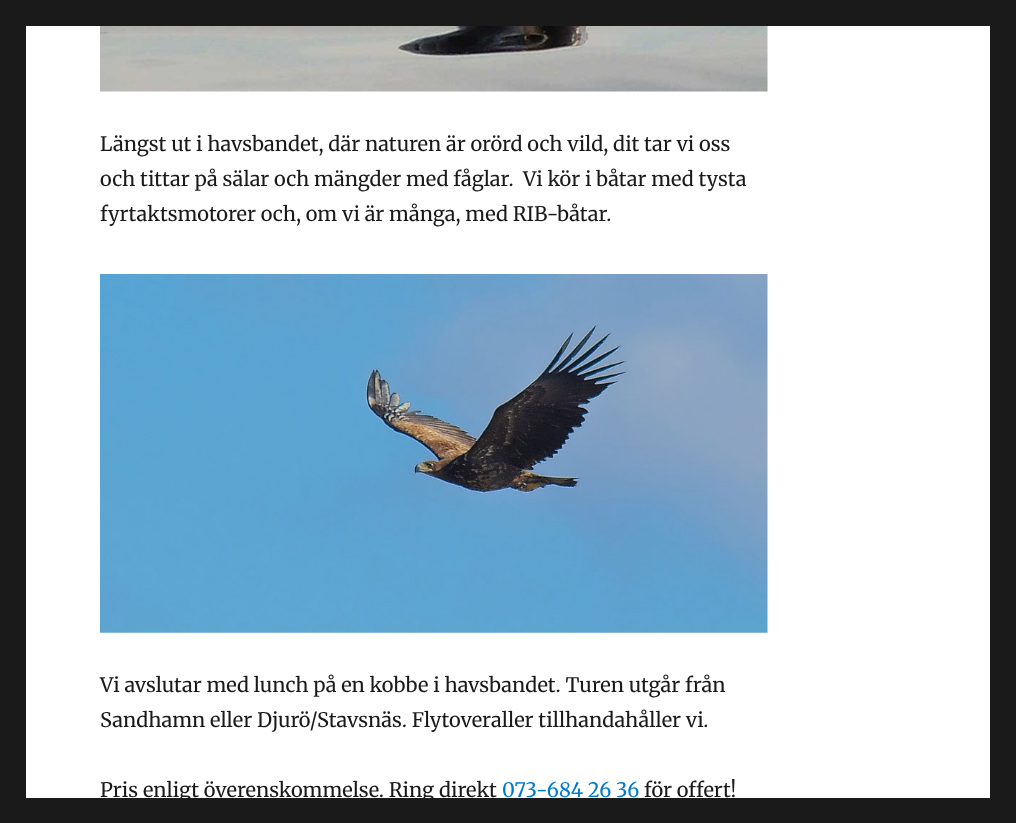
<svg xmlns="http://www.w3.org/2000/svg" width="1016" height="823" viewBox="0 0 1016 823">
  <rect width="100%" height="100%" fill="#1a1a1a"/>
  <path d="M26 26h964v772H26z" fill="#fff"/>
  <image x="100" y="26" width="668" height="66" href="img/1.png"/>
  <image x="100" y="274" width="668" height="359" href="img/2.png"/>
  <g font-family="Merriweather" font-size="20" fill="#1a1a1a">
    <text x="100" y="151">Längst ut i havsbandet, där naturen är orörd och vild, dit tar vi oss</text>
    <text x="100" y="186" xml:space="preserve">och tittar på sälar och mängder med fåglar.  Vi kör i båtar med tysta</text>
    <text x="100" y="221">fyrtaktsmotorer och, om vi är många, med RIB-båtar.</text>
    <text x="100" y="692">Vi avslutar med lunch på en kobbe i havsbandet. Turen utgår från</text>
    <text x="100" y="727">Sandhamn eller Djurö/Stavsnäs. Flytoveraller tillhandahåller vi.</text>
    <text x="100" y="797">Pris enligt överenskommelse. Ring direkt</text>
  </g>
  <text x="502" y="797" font-family="Merriweather" font-size="20" fill="#007acc">073-684 26 36</text>
  <text x="644" y="797" font-family="Merriweather" font-size="20" fill="#1a1a1a">för offert!</text>
</svg>
